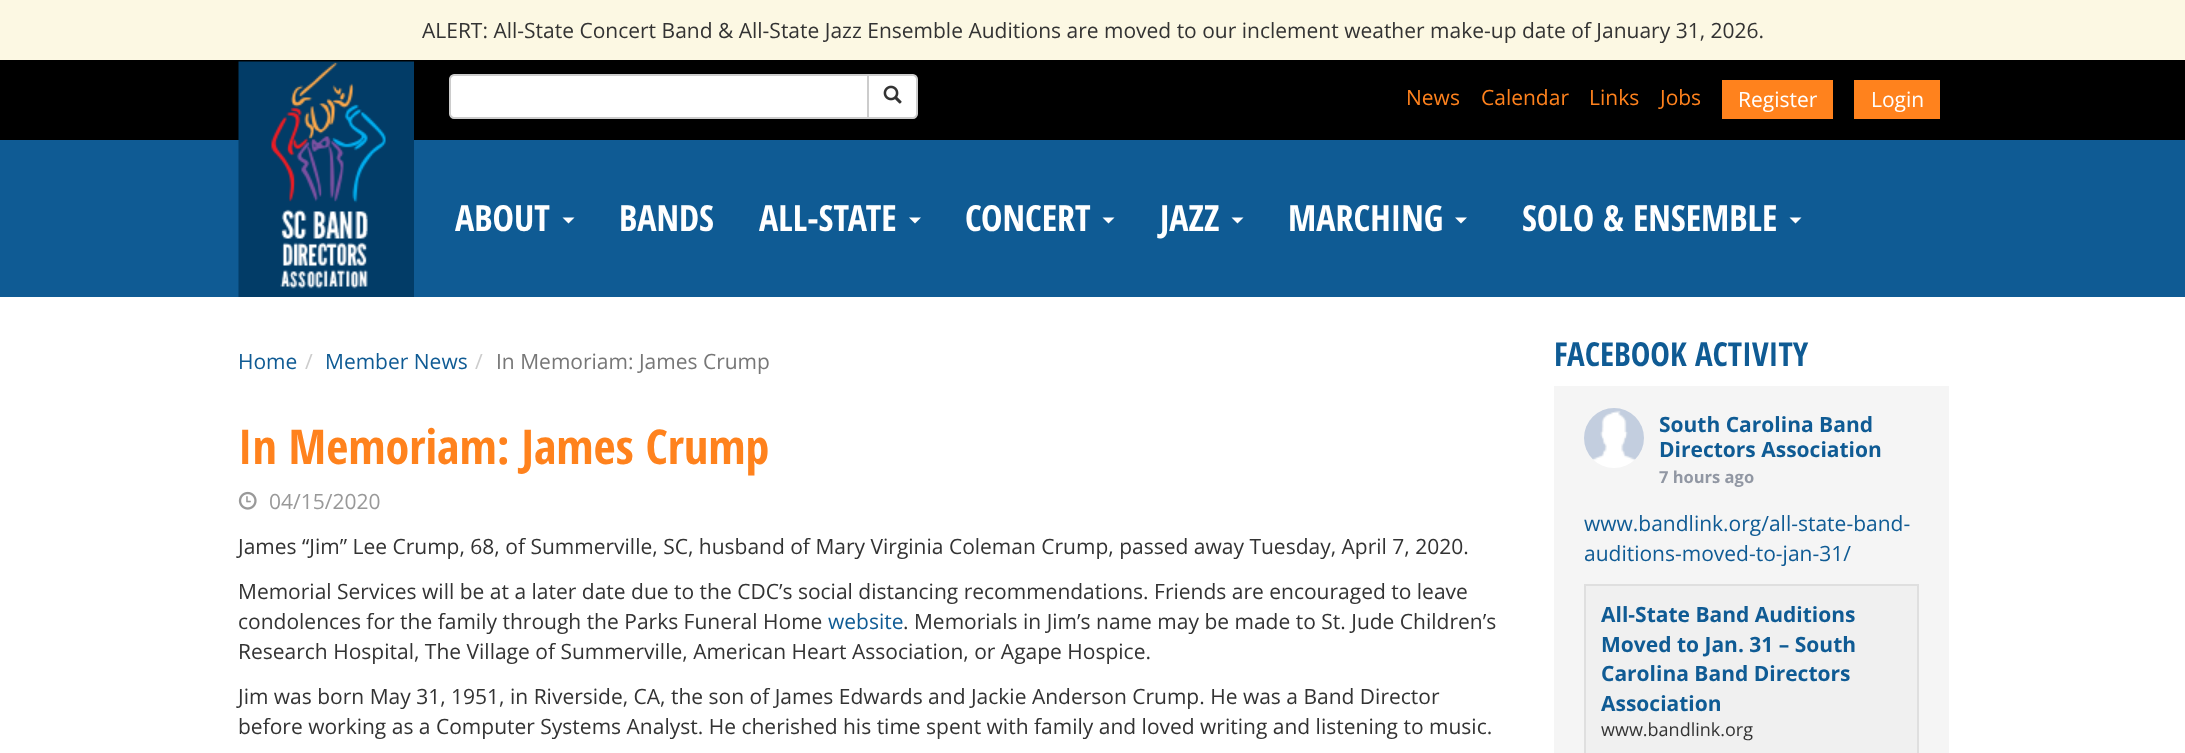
<svg xmlns="http://www.w3.org/2000/svg" width="2185" height="753" viewBox="0 0 2185 753">
  <rect width="100%" height="100%" fill="#fff"/>
  <path d="M0 0h2185v60H0z" fill="#fcf8e3"/>
  <path d="M0 60h2185v80H0z" fill="#000"/>
  <path d="M454 75H868V118H454C452 118 450 116 450 114V79C450 77 452 75 454 75Z" fill="#fff" stroke="#ccc" stroke-width="2"/>
  <path d="M868 75H913C915 75 917 77 917 79V114C917 116 915 118 913 118H868Z" fill="#fff" stroke="#ccc" stroke-width="2"/>
  <image x="883" y="85" width="19" height="19" href="img/1.png"/>
  <path d="M1722 80h111v39H1722z" fill="#ff821d"/>
  <path d="M1854 80h86v39H1854z" fill="#ff821d"/>
  <path d="M0 140h2185v157H0z" fill="#0f5b94"/>
  <image x="238" y="61" width="176" height="236" href="img/2.png"/>
  <path d="M562.5 217.5H574.5L568.5 223.5Z" fill="#fff"/>
  <path d="M909 217.5H921L915 223.5Z" fill="#fff"/>
  <path d="M1102.5 217.5H1114.5L1108.5 223.5Z" fill="#fff"/>
  <path d="M1231.5 217.5H1243.5L1237.5 223.5Z" fill="#fff"/>
  <path d="M1455 217.5H1467L1461 223.5Z" fill="#fff"/>
  <path d="M1789.5 217.5H1801.5L1795.5 223.5Z" fill="#fff"/>
  <image x="238" y="491" width="19" height="19" href="img/3.png"/>
  <path d="M1554 386h395v367H1554z" fill="#f5f5f5"/>
  <image x="1584" y="408" width="60" height="60" href="img/4.png"/>
  <path d="M1585 585h333v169H1585z" fill="#f0f0f0" stroke="#dfdfdf" stroke-width="2"/>
  <text x="422" y="38" font-family="Open Sans" font-size="21" fill="#333">ALERT: All-State Concert Band &amp; All-State Jazz Ensemble Auditions are moved to our inclement weather make-up date of January 31, 2026.</text>
  <g font-family="Open Sans" font-size="21" fill="#ff821d">
    <text x="1406" y="105">News</text>
    <text x="1481" y="105">Calendar</text>
    <text x="1589" y="105">Links</text>
    <text x="1660" y="105">Jobs</text>
  </g>
  <g font-family="Open Sans" font-size="21" fill="#fff">
    <text x="1738" y="107">Register</text>
    <text x="1871" y="107">Login</text>
  </g>
  <g font-family="Open Sans Condensed" font-size="36" font-weight="bold" fill="#fff">
    <text x="455" y="231">ABOUT</text>
    <text x="619" y="231">BANDS</text>
    <text x="759" y="231">ALL-STATE</text>
    <text x="965" y="231">CONCERT</text>
    <text x="1160" y="231">JAZZ</text>
    <text x="1288" y="231">MARCHING</text>
    <text x="1522" y="231">SOLO &amp; ENSEMBLE</text>
  </g>
  <text x="238" y="369" font-family="Open Sans" font-size="21" fill="#0f5b94">Home</text>
  <text x="305" y="369" font-family="Open Sans" font-size="21" fill="#ccc">/</text>
  <text x="325" y="369" font-family="Open Sans" font-size="21" fill="#0f5b94">Member News</text>
  <text x="475" y="369" font-family="Open Sans" font-size="21" fill="#ccc">/</text>
  <text x="496" y="369" font-family="Open Sans" font-size="21" fill="#777">In Memoriam: James Crump</text>
  <text x="238" y="464" font-family="Open Sans Condensed" font-size="48" font-weight="bold" fill="#ff821d">In Memoriam: James Crump</text>
  <text x="269" y="509" font-family="Open Sans" font-size="21" fill="#999">04/15/2020</text>
  <g font-family="Open Sans" font-size="21" fill="#333">
    <text x="238" y="554">James “Jim” Lee Crump, 68, of Summerville, SC, husband of Mary Virginia Coleman Crump, passed away Tuesday, April 7, 2020.</text>
    <text x="238" y="599">Memorial Services will be at a later date due to the CDC’s social distancing recommendations. Friends are encouraged to leave</text>
    <text x="238" y="629">condolences for the family through the Parks Funeral Home</text>
  </g>
  <text x="828" y="629" font-family="Open Sans" font-size="21" fill="#0f5b94">website</text>
  <g font-family="Open Sans" font-size="21" fill="#333">
    <text x="903" y="629">. Memorials in Jim’s name may be made to St. Jude Children’s</text>
    <text x="238" y="659">Research Hospital, The Village of Summerville, American Heart Association, or Agape Hospice.</text>
    <text x="238" y="704">Jim was born May 31, 1951, in Riverside, CA, the son of James Edwards and Jackie Anderson Crump. He was a Band Director</text>
    <text x="238" y="734">before working as a Computer Systems Analyst. He cherished his time spent with family and loved writing and listening to music.</text>
  </g>
  <text x="1554" y="366" font-family="Open Sans Condensed" font-size="33" font-weight="bold" fill="#0f5b94">FACEBOOK ACTIVITY</text>
  <g font-family="Open Sans" font-size="21" font-weight="bold" fill="#0f5b94">
    <text x="1659" y="432">South Carolina Band</text>
    <text x="1659" y="457">Directors Association</text>
  </g>
  <text x="1659" y="483" font-family="Open Sans" font-size="16.5" font-weight="bold" fill="#9197a3">7 hours ago</text>
  <g font-family="Open Sans" font-size="21" fill="#0f5b94">
    <text x="1584" y="531">www.bandlink.org/all-state-band-</text>
    <text x="1584" y="561">auditions-moved-to-jan-31/</text>
  </g>
  <g font-family="Open Sans" font-size="21" font-weight="bold" fill="#0f5b94">
    <text x="1601" y="622">All-State Band Auditions</text>
    <text x="1601" y="652">Moved to Jan. 31 – South</text>
    <text x="1601" y="681">Carolina Band Directors</text>
    <text x="1601" y="711">Association</text>
  </g>
  <text x="1601" y="736" font-family="Open Sans" font-size="18" fill="#333">www.bandlink.org</text>
</svg>
